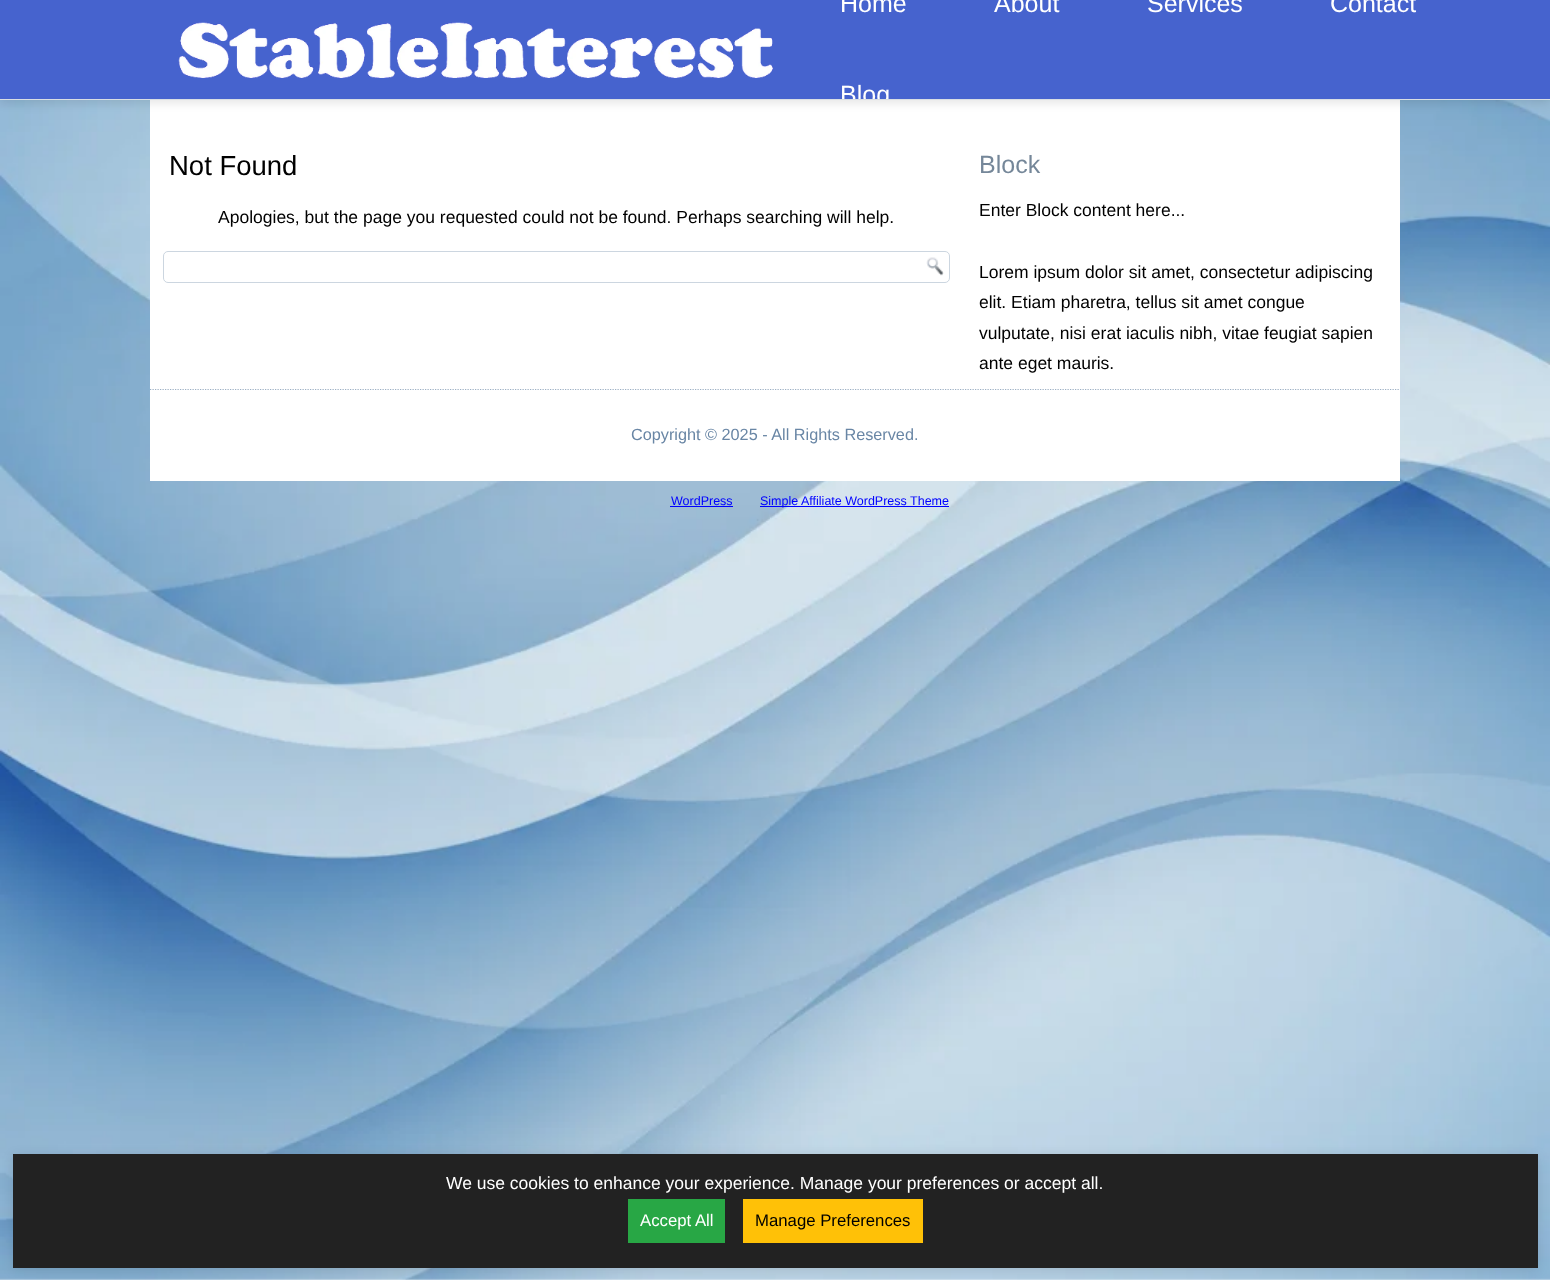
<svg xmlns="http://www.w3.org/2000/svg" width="1550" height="1280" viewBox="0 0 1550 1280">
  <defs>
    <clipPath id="clip1"><path d="M0 0h1550v99H0z"/></clipPath>
  </defs>
  <rect width="100%" height="100%" fill="#fff"/>
  <image x="0" y="100" width="1550" height="1180" href="img/2.png"/>
  <path d="M150 100h1250v381H150z" fill="#fff"/>
  <path d="M0 3h1550v100H0z" fill="#0000001a" filter="blur(5px)"/>
  <path d="M0 0h1550v99H0z" fill="#4663ce"/>
  <path d="M0 99h1550v1H0z" fill="#d9dee3"/>
  <image x="178" y="22" width="595" height="56" href="img/1.png"/>
  <rect x="163.5" y="251.5" width="786" height="31" rx="4.5" fill="none" stroke="#ccd6e0"/>
  <image x="926" y="257" width="18" height="19" href="img/3.png"/>
  <path d="M150 389.5H1400" fill="none" stroke="#9cafc4" stroke-width="1.2" stroke-dasharray="1.25 1.25"/>
  <path d="M670 506h63v1H670z" fill="#00f"/>
  <path d="M760 506h189v1H760z" fill="#00f"/>
  <path d="M13 1156h1525v114H13z" fill="#0000001a" filter="blur(6px)"/>
  <path d="M13 1154h1525v114H13z" fill="#222"/>
  <path d="M628 1199h97v44H628z" fill="#28a745"/>
  <path d="M743 1199h180v44H743z" fill="#ffc107"/>
  <g font-family="Liberation Sans" font-size="25" fill="#fff">
    <text x="840" y="12">Home</text>
    <text x="994" y="12">About</text>
    <text x="1147" y="12">Services</text>
    <text x="1330" y="12">Contact</text>
  </g>
  <g clip-path="url(#clip1)">
    <text x="840" y="103" font-family="Liberation Sans" font-size="25" fill="#fff">Blog</text>
  </g>
  <text x="169" y="175" font-family="Liberation Sans" font-size="27.5" fill="#000">Not Found</text>
  <text x="218" y="223" font-family="Liberation Sans" font-size="17.5" fill="#000">Apologies, but the page you requested could not be found. Perhaps searching will help.</text>
  <text x="979" y="173" font-family="Liberation Sans" font-size="25" fill="#758799">Block</text>
  <g font-family="Liberation Sans" font-size="17.5" fill="#000">
    <text x="979" y="216">Enter Block content here...</text>
    <text x="979" y="278">Lorem ipsum dolor sit amet, consectetur adipiscing</text>
    <text x="979" y="308">elit. Etiam pharetra, tellus sit amet congue</text>
    <text x="979" y="339">vulputate, nisi erat iaculis nibh, vitae feugiat sapien</text>
    <text x="979" y="369">ante eget mauris.</text>
  </g>
  <text x="631" y="440" font-family="Liberation Sans" font-size="16.25" fill="#6986a5">Copyright © 2025 - All Rights Reserved.</text>
  <g font-family="Liberation Sans" font-size="12.5" fill="#00f">
    <text x="671" y="505">WordPress</text>
    <text x="760" y="505">Simple Affiliate WordPress Theme</text>
  </g>
  <text x="446" y="1189" font-family="Liberation Sans" font-size="17.5" fill="#fff">We use cookies to enhance your experience. Manage your preferences or accept all.</text>
  <text x="640" y="1226" font-family="Liberation Sans" font-size="16.75" fill="#fff">Accept All</text>
  <text x="755" y="1226" font-family="Liberation Sans" font-size="16.75" fill="#000">Manage Preferences</text>
</svg>
